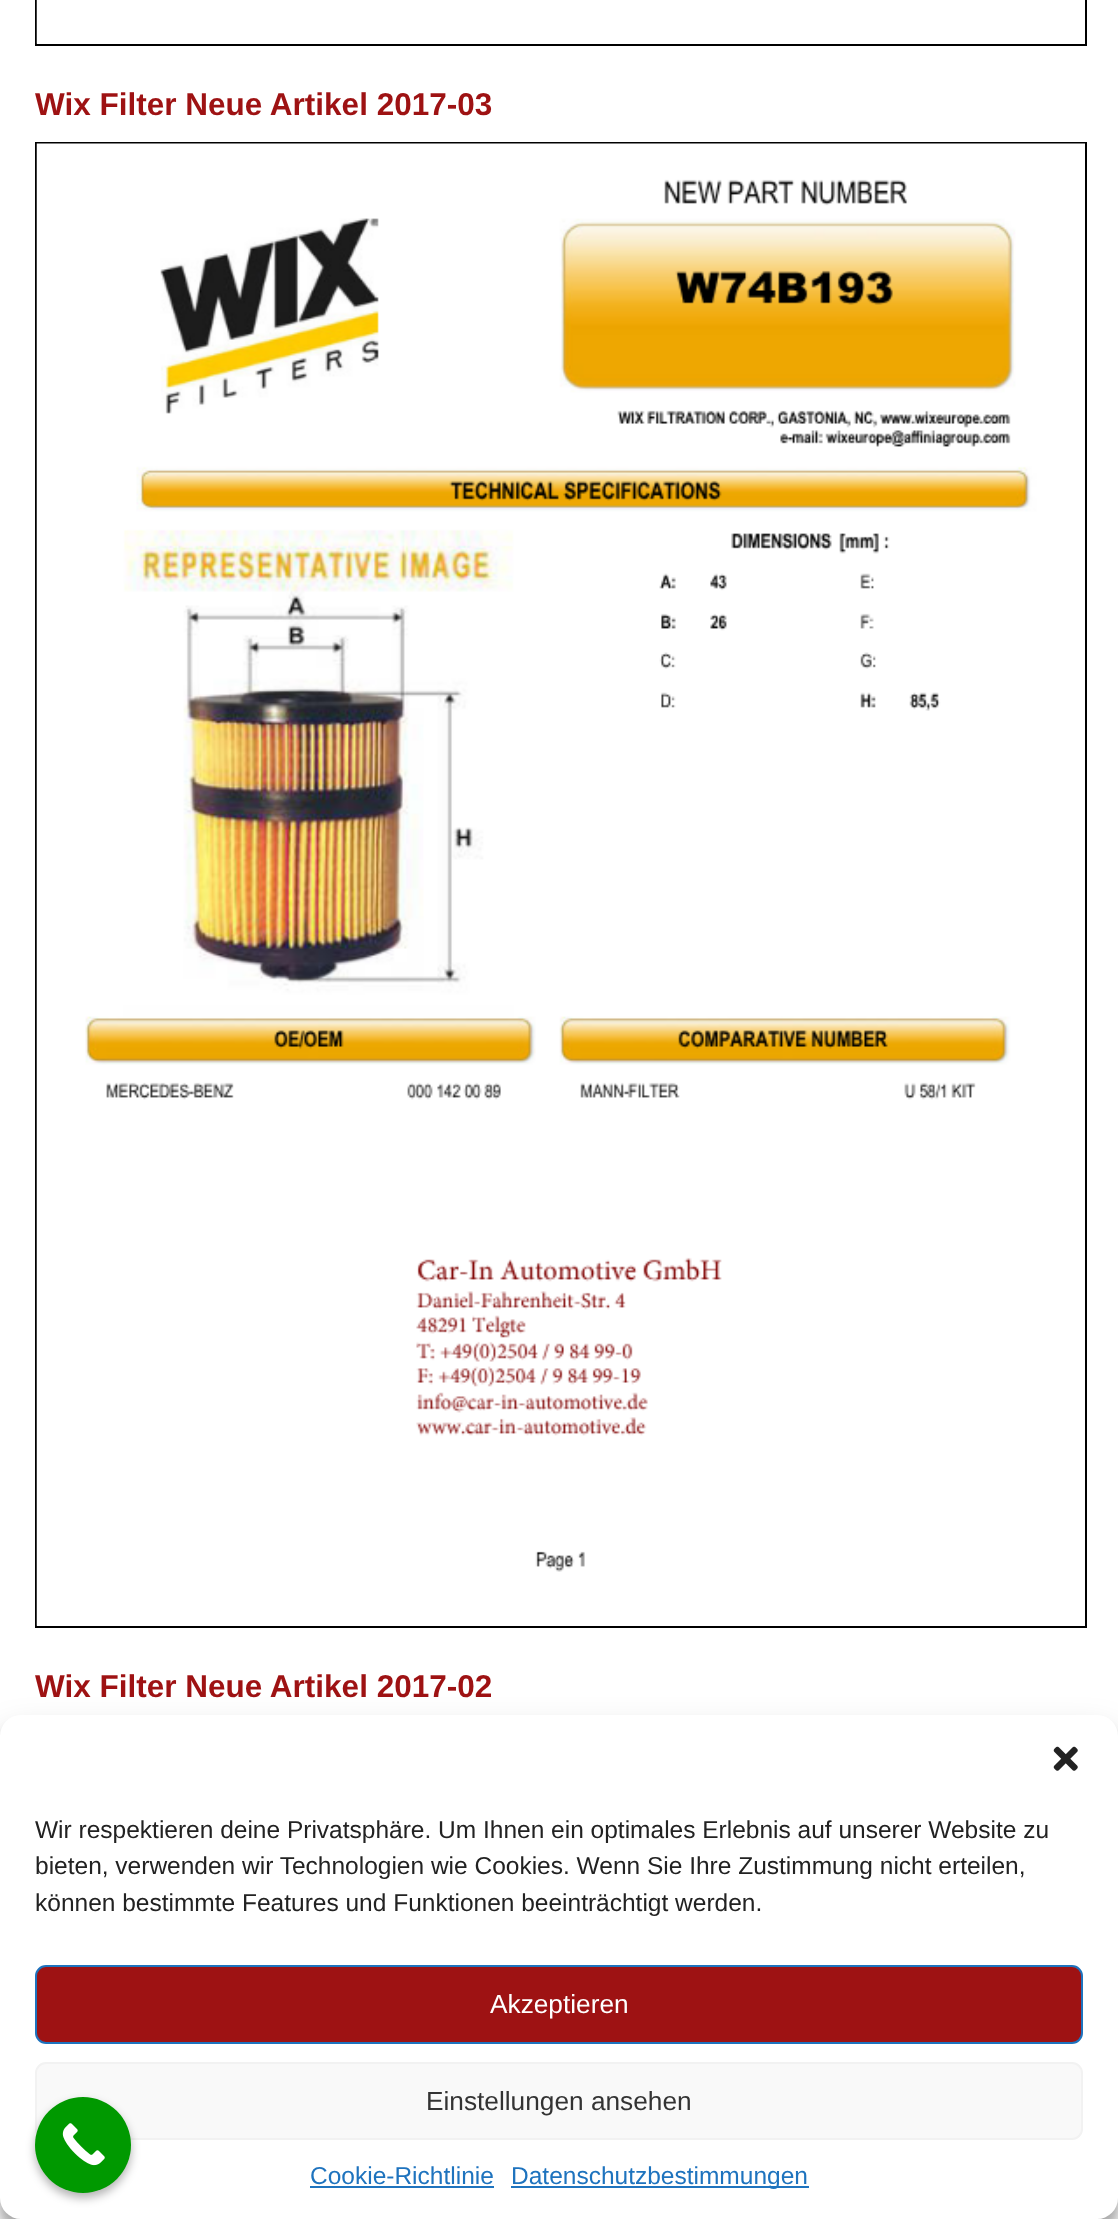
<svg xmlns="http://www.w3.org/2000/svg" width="1118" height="2219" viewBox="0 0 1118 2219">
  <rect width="100%" height="100%" fill="#fff"/>
  <path d="M36 -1h1050v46H36z" fill="none" stroke="#000" stroke-width="2"/>
  <image x="36" y="0" width="1" height="44" href="img/1.png"/>
  <path d="M36 143h1050v1484H36z" fill="none" stroke="#000" stroke-width="2"/>
  <image x="36" y="143" width="1049" height="1483" href="img/2.png"/>
  <rect y="1726" width="1118" height="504" rx="21" fill="#0000003b" filter="blur(5px)"/>
  <rect y="1733" width="1118" height="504" rx="21" fill="#00000030" filter="blur(17.5px)"/>
  <rect y="1715" width="1118" height="504" rx="21" fill="#fff"/>
  <image x="1053" y="1746" width="25" height="25" href="img/3.png"/>
  <rect x="36" y="1966" width="1046" height="77" rx="10" fill="#9e1213" stroke="#1e73be" stroke-width="2"/>
  <rect x="36" y="2063" width="1046" height="76" rx="10" fill="#f9f9f9" stroke="#f2f2f2" stroke-width="2"/>
  <path d="M310 2186h184v2H310z" fill="#1e73be"/>
  <path d="M511 2186h298v2H511z" fill="#1e73be"/>
  <rect x="35" y="2102" width="96" height="96" rx="48" fill="#0000004d" filter="blur(5px)"/>
  <circle cx="83" cy="2145" r="48" fill="#090"/>
  <image x="62" y="2123" width="43" height="43" href="img/4.png"/>
  <g font-family="Liberation Sans" font-size="31.5" font-weight="bold" fill="#9e1213">
    <text x="35" y="115">Wix Filter Neue Artikel 2017-03</text>
    <text x="35" y="1697">Wix Filter Neue Artikel 2017-02</text>
  </g>
  <g font-family="Liberation Sans" font-size="24.5" fill="#222">
    <text x="35" y="1838">Wir respektieren deine Privatsphäre. Um Ihnen ein optimales Erlebnis auf unserer Website zu</text>
    <text x="35" y="1874">bieten, verwenden wir Technologien wie Cookies. Wenn Sie Ihre Zustimmung nicht erteilen,</text>
    <text x="35" y="1911">können bestimmte Features und Funktionen beeinträchtigt werden.</text>
  </g>
  <text x="490" y="2013" font-family="Liberation Sans" font-size="26.25" fill="#fff">Akzeptieren</text>
  <text x="426" y="2110" font-family="Liberation Sans" font-size="26.25" fill="#333">Einstellungen ansehen</text>
  <g font-family="Liberation Sans" font-size="24.5" fill="#1e73be">
    <text x="310" y="2184">Cookie-Richtlinie</text>
    <text x="511" y="2184">Datenschutzbestimmungen</text>
  </g>
</svg>
